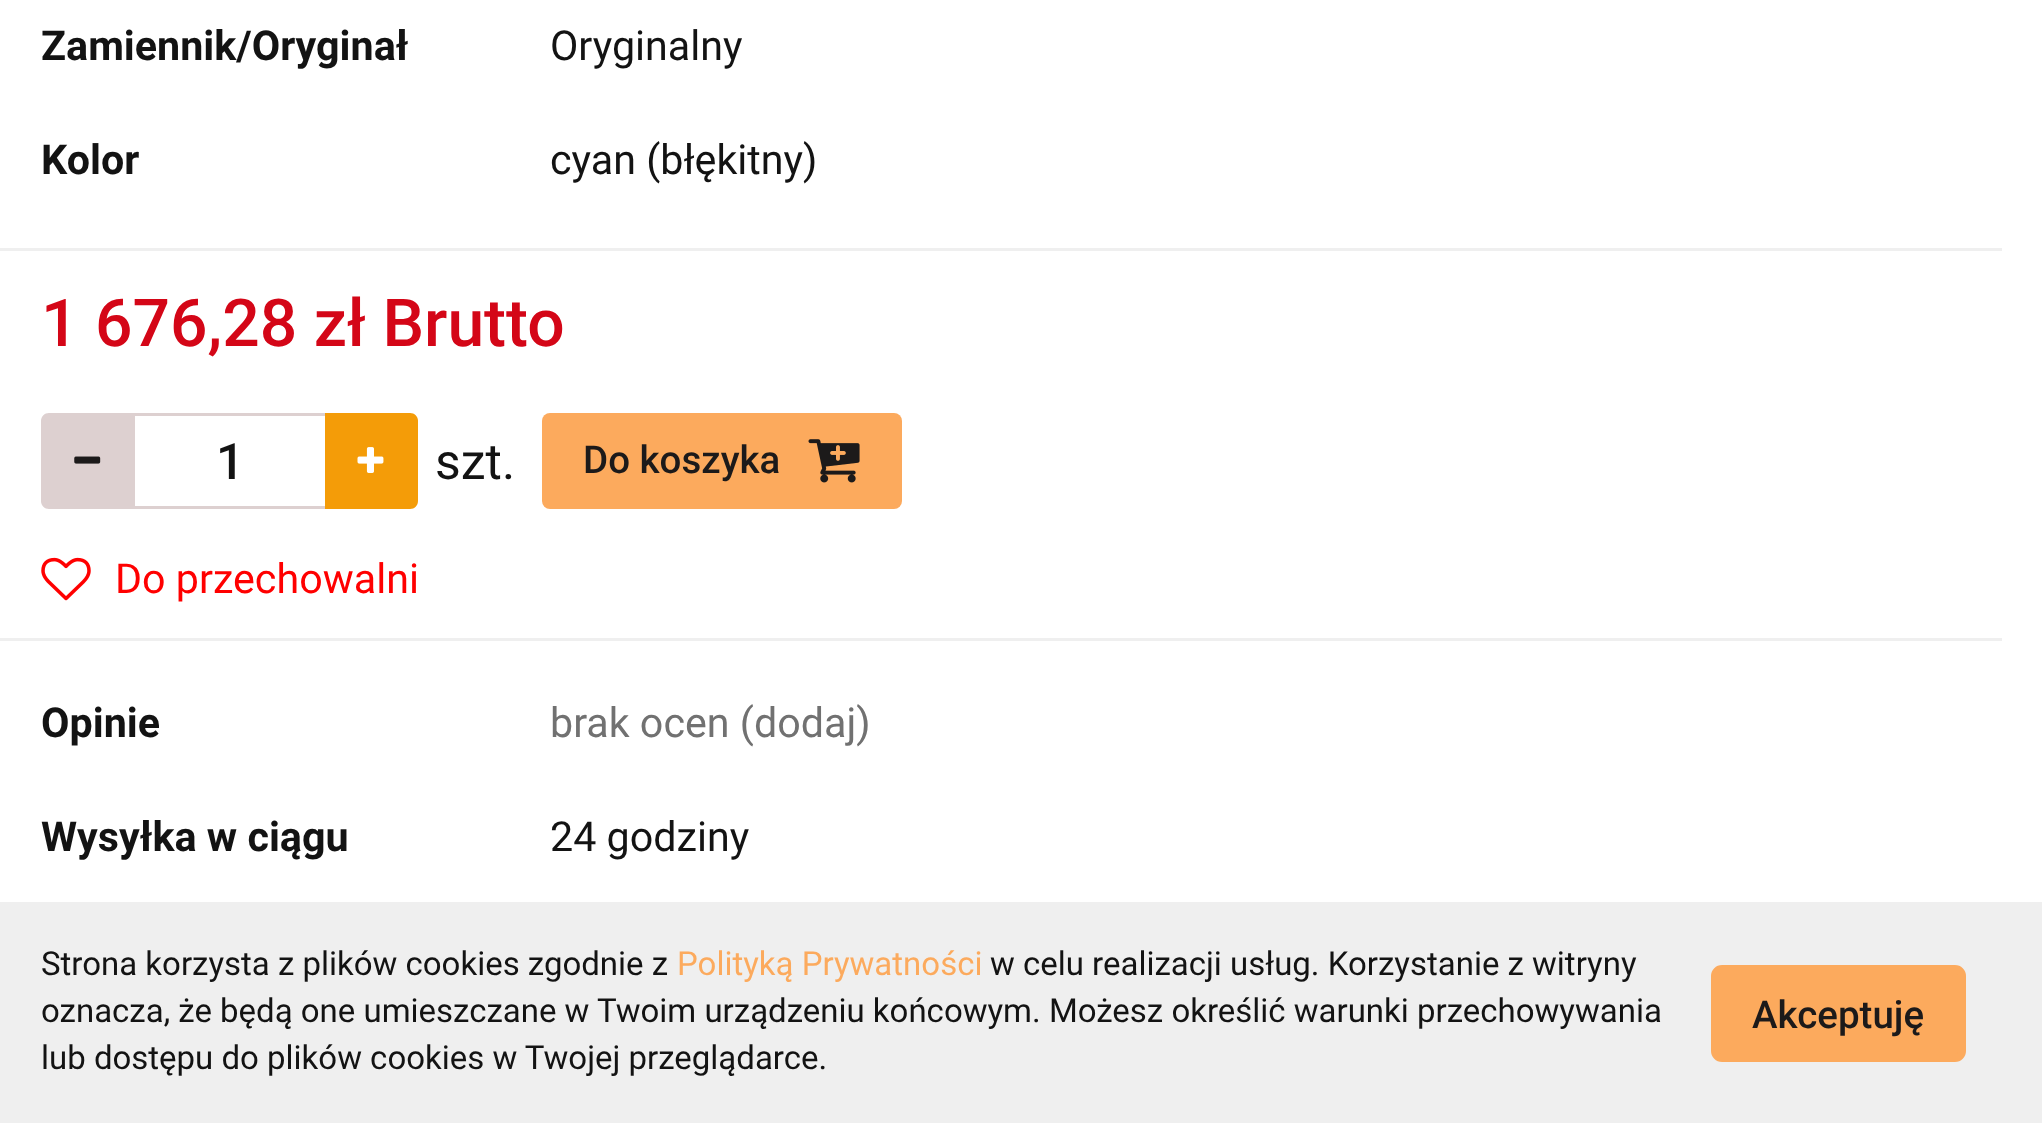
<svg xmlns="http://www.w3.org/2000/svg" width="2042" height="1123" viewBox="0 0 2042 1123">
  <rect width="100%" height="100%" fill="#fff"/>
  <path d="M0 248h2002v3H0z" fill="#efefef"/>
  <path d="M0 638h2002v3H0z" fill="#efefef"/>
  <path d="M49 413H135V509H49C44.5 509 41 505.5 41 501V421C41 416.5 44.5 413 49 413Z" fill="#ddd0d0"/>
  <path d="M135 413h190v3H135z" fill="#ddd0d0"/>
  <image x="74" y="456" width="27" height="8" href="img/1.png"/>
  <path d="M135 506h190v3H135z" fill="#ddd0d0"/>
  <path d="M325 413H410C414.5 413 418 416.5 418 421V501C418 505.5 414.5 509 410 509H325Z" fill="#f49c08"/>
  <image x="357" y="447" width="27" height="26" href="img/2.png"/>
  <rect x="542" y="413" width="360" height="96" rx="8" fill="#fcaa5d"/>
  <image x="808" y="439" width="52" height="44" href="img/3.png"/>
  <image x="41" y="557" width="50" height="44" href="img/4.png"/>
  <path d="M0 902h2042v221H0z" fill="#efefef"/>
  <rect x="1715" y="969" width="247" height="89" rx="7" fill="#fcaa5d" stroke="#fcaa5d" stroke-width="8"/>
  <text x="41" y="60" font-family="Roboto" font-size="41.25" font-weight="bold" fill="#131313">Zamiennik/Oryginał</text>
  <text x="550" y="60" font-family="Roboto" font-size="41.25" fill="#131313">Oryginalny</text>
  <text x="41" y="174" font-family="Roboto" font-size="41.25" font-weight="bold" fill="#131313">Kolor</text>
  <text x="550" y="174" font-family="Roboto" font-size="41.25" fill="#131313">cyan (błękitny)</text>
  <text x="41" y="346" font-family="Roboto" font-size="66" font-weight="500" fill="#d40617">1 676,28 zł Brutto</text>
  <text x="216" y="479" font-family="Roboto" font-size="50" font-weight="500" fill="#131313">1</text>
  <text x="435" y="479" font-family="Roboto" font-size="50" fill="#131313">szt.</text>
  <text x="583" y="473" font-family="Roboto" font-size="38.5" font-weight="500" fill="#1c1a1a">Do koszyka</text>
  <text x="115" y="593" font-family="Roboto" font-size="41.25" fill="#f00">Do przechowalni</text>
  <text x="41" y="737" font-family="Roboto" font-size="41.25" font-weight="bold" fill="#131313">Opinie</text>
  <text x="550" y="737" font-family="Roboto" font-size="41.25" fill="#717171">brak ocen (dodaj)</text>
  <text x="41" y="851" font-family="Roboto" font-size="41.25" font-weight="bold" fill="#131313">Wysyłka w ciągu</text>
  <text x="550" y="851" font-family="Roboto" font-size="41.25" fill="#131313">24 godziny</text>
  <text x="41" y="975" font-family="Roboto" font-size="33" fill="#131313">Strona korzysta z plików cookies zgodnie z</text>
  <text x="677" y="975" font-family="Roboto" font-size="33" fill="#fcaa5d">Polityką Prywatności</text>
  <g font-family="Roboto" font-size="33" fill="#131313">
    <text x="990" y="975">w celu realizacji usług. Korzystanie z witryny</text>
    <text x="41" y="1022">oznacza, że będą one umieszczane w Twoim urządzeniu końcowym. Możesz określić warunki przechowywania</text>
    <text x="41" y="1069">lub dostępu do plików cookies w Twojej przeglądarce.</text>
  </g>
  <text x="1752" y="1028" font-family="Roboto" font-size="38.5" font-weight="500" fill="#1c1a1a">Akceptuję</text>
</svg>
